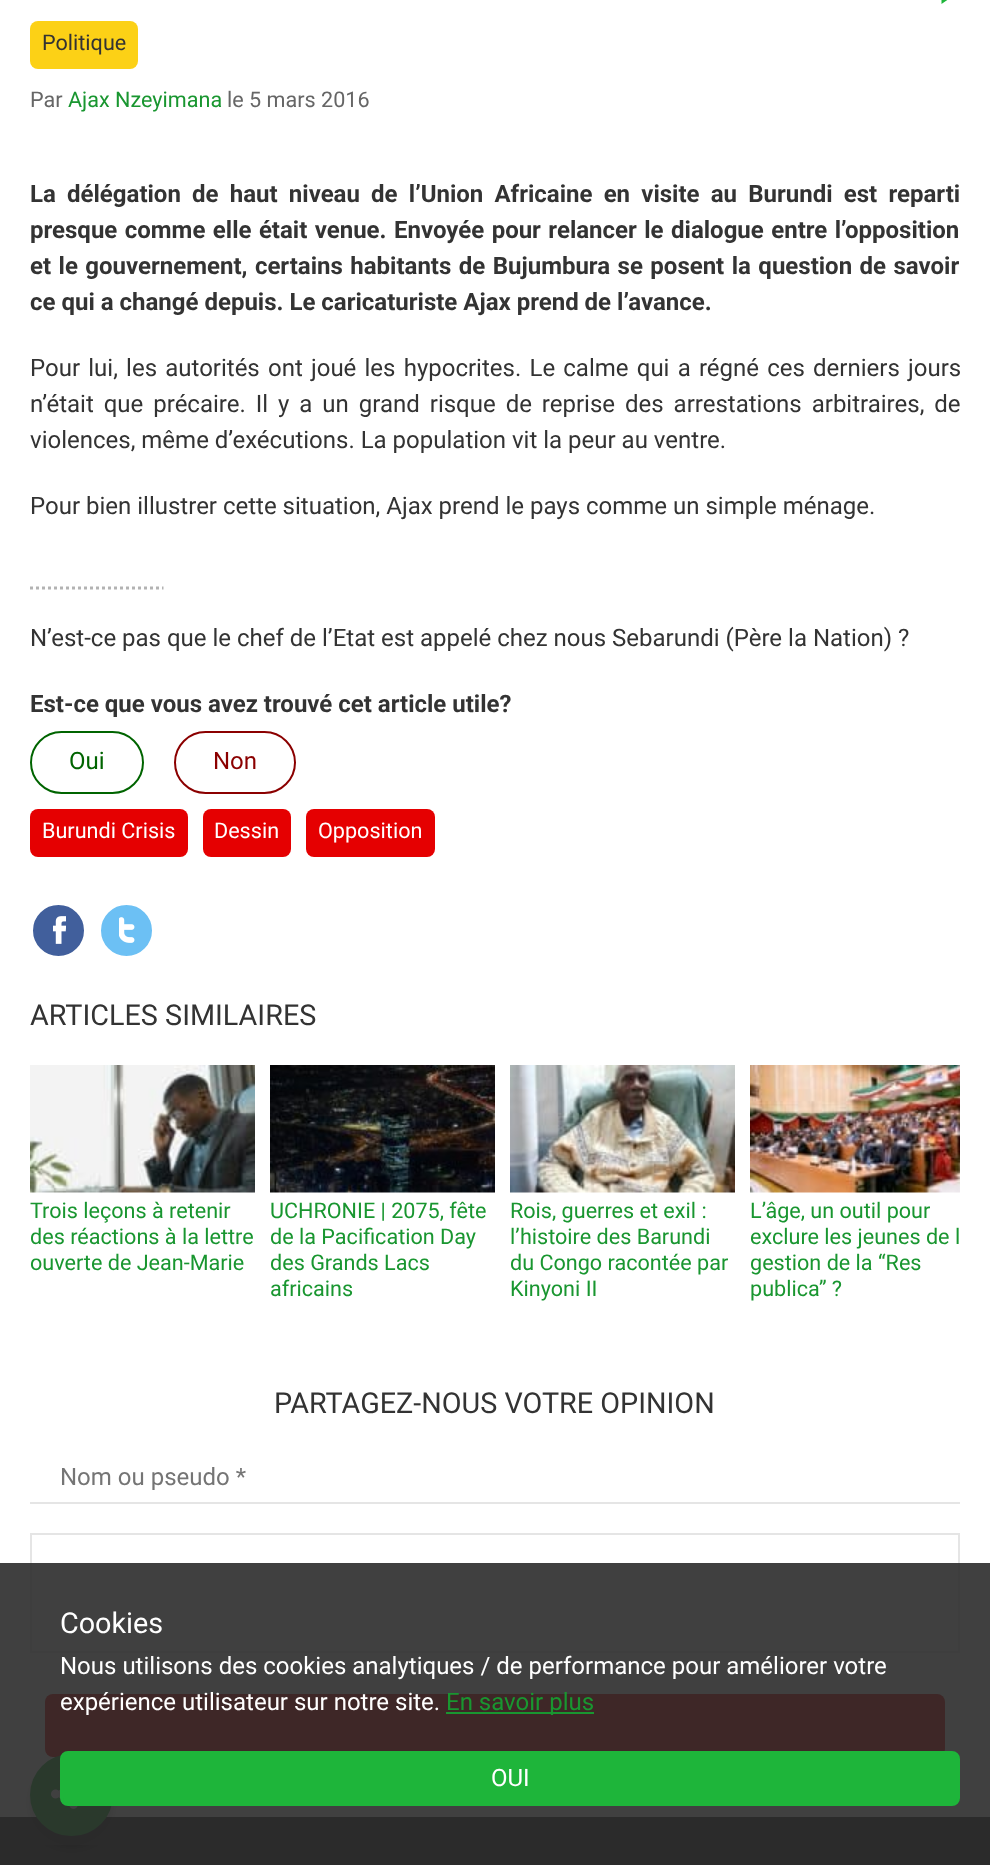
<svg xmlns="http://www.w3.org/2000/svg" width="990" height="1865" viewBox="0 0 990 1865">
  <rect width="100%" height="100%" fill="#fff"/>
  <path d="M953-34C957-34 960.5-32.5 963.5-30C977-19 966 2.5 949.5-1.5L941.5 4V-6C931.5-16 938.5-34 953-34Z" fill="#1eb53a"/>
  <rect x="30" y="21" width="108" height="48" rx="8" fill="#fcd116"/>
  <path d="M30 588H163.5" fill="none" stroke="#b3b3b3" stroke-width="3" stroke-dasharray="3 3"/>
  <rect x="31" y="732" width="112" height="61" rx="30.5" fill="none" stroke="#006400" stroke-width="2"/>
  <rect x="175" y="732" width="120" height="61" rx="30.5" fill="none" stroke="#8b0000" stroke-width="2"/>
  <rect x="30" y="809" width="158" height="48" rx="8" fill="#e50001"/>
  <rect x="203" y="809" width="88" height="48" rx="8" fill="#e50001"/>
  <rect x="306" y="809" width="129" height="48" rx="8" fill="#e50001"/>
  <circle cx="58.5" cy="930.5" r="27" fill="#415f9c" stroke="#fff" stroke-width="3"/>
  <image x="53" y="916" width="13" height="28" href="img/1.png"/>
  <circle cx="126.5" cy="930.5" r="27" fill="#6cc0f4" stroke="#fff" stroke-width="3"/>
  <image x="119" y="917" width="16" height="26" href="img/2.png"/>
  <image x="30" y="1065" width="225" height="128" href="img/3.png"/>
  <image x="270" y="1065" width="225" height="128" href="img/4.png"/>
  <image x="510" y="1065" width="225" height="128" href="img/5.png"/>
  <image x="750" y="1065" width="210" height="128" href="img/6.png"/>
  <rect x="45" y="1694" width="900" height="63" rx="8" fill="#e50001"/>
  <path d="M0 1817h990v48H0z" fill="#2b2b2b"/>
  <rect x="30" y="1761" width="83" height="83" rx="41.5" fill="#00000033" filter="blur(4px)"/>
  <rect x="30" y="1754" width="83" height="82" rx="41" fill="#1eb53a"/>
  <image x="51" y="1789" width="27" height="20" href="img/7.png"/>
  <path d="M30 1502h930v2H30z" fill="#e5e5e5"/>
  <path d="M31 1534h928v118H31z" fill="none" stroke="#e5e5e5" stroke-width="2"/>
  <path d="M0 1563h990v282H0z" fill="#2b2b2be6"/>
  <path d="M446 1712h148v2H446z" fill="#199630"/>
  <rect x="61.5" y="1752.5" width="897" height="52" rx="6.5" fill="#1eb53a" stroke="#1eb53a" stroke-width="3"/>
  <text x="42" y="50" font-family="Roboto" font-size="21.6" fill="#333">Politique</text>
  <text x="30" y="107" font-family="Roboto" font-size="21.6" fill="#666">Par</text>
  <text x="68" y="107" font-family="Roboto" font-size="21.6" fill="#199630">Ajax Nzeyimana</text>
  <text x="227" y="107" font-family="Roboto" font-size="21.6" fill="#666">le 5 mars 2016</text>
  <g font-family="Roboto" font-size="24" font-weight="bold" fill="#333">
    <text x="30" y="202" word-spacing="5.25">La délégation de haut niveau de l’Union Africaine en visite au Burundi est reparti</text>
    <text x="30" y="238" word-spacing="1.5">presque comme elle était venue. Envoyée pour relancer le dialogue entre l’opposition</text>
    <text x="30" y="274" word-spacing="1.5">et le gouvernement, certains habitants de Bujumbura se posent la question de savoir</text>
    <text x="30" y="310">ce qui a changé depuis. Le caricaturiste Ajax prend de l’avance.</text>
  </g>
  <g font-family="Roboto" font-size="24" fill="#333">
    <text x="30" y="376" word-spacing="2.25">Pour lui, les autorités ont joué les hypocrites. Le calme qui a régné ces derniers jours</text>
    <text x="30" y="412" word-spacing="4">n’était que précaire. Il y a un grand risque de reprise des arrestations arbitraires, de</text>
    <text x="30" y="448">violences, même d’exécutions. La population vit la peur au ventre.</text>
    <text x="30" y="514">Pour bien illustrer cette situation, Ajax prend le pays comme un simple ménage.</text>
    <text x="30" y="646">N’est-ce pas que le chef de l’Etat est appelé chez nous Sebarundi (Père la Nation) ?</text>
  </g>
  <text x="30" y="712" font-family="Roboto" font-size="24" font-weight="bold" fill="#333">Est-ce que vous avez trouvé cet article utile?</text>
  <text x="69" y="769" font-family="Roboto" font-size="24" fill="#006400">Oui</text>
  <text x="213" y="769" font-family="Roboto" font-size="24" fill="#8b0000">Non</text>
  <g font-family="Roboto" font-size="21.6" fill="#fff">
    <text x="42" y="838">Burundi Crisis</text>
    <text x="214" y="838">Dessin</text>
    <text x="318" y="838">Opposition</text>
  </g>
  <text x="30" y="1025" font-family="Roboto" font-size="28.75" fill="#333">ARTICLES SIMILAIRES</text>
  <g font-family="Roboto" font-size="21.6" fill="#199630">
    <text x="30" y="1218">Trois leçons à retenir</text>
    <text x="30" y="1244">des réactions à la lettre</text>
    <text x="30" y="1270">ouverte de Jean-Marie</text>
    <text x="270" y="1218">UCHRONIE | 2075, fête</text>
    <text x="270" y="1244">de la Pacification Day</text>
    <text x="270" y="1270">des Grands Lacs</text>
    <text x="270" y="1296">africains</text>
    <text x="510" y="1218">Rois, guerres et exil :</text>
    <text x="510" y="1244">l’histoire des Barundi</text>
    <text x="510" y="1270">du Congo racontée par</text>
    <text x="510" y="1296">Kinyoni II</text>
    <text x="750" y="1218">L’âge, un outil pour</text>
    <text x="750" y="1244">exclure les jeunes de l</text>
    <text x="750" y="1270">gestion de la “Res</text>
    <text x="750" y="1296">publica’’ ?</text>
  </g>
  <text x="274" y="1413" font-family="Roboto" font-size="28.75" fill="#333">PARTAGEZ-NOUS VOTRE OPINION</text>
  <text x="60" y="1485" font-family="Roboto" font-size="24" fill="#757575">Nom ou pseudo *</text>
  <text x="60" y="1633" font-family="Roboto" font-size="28.75" fill="#fff">Cookies</text>
  <g font-family="Roboto" font-size="24" fill="#fff">
    <text x="60" y="1674">Nous utilisons des cookies analytiques / de performance pour améliorer votre</text>
    <text x="60" y="1710">expérience utilisateur sur notre site.</text>
  </g>
  <text x="446" y="1710" font-family="Roboto" font-size="24" fill="#199630">En savoir plus</text>
  <text x="491" y="1786" font-family="Roboto" font-size="24" fill="#fff">OUI</text>
</svg>
